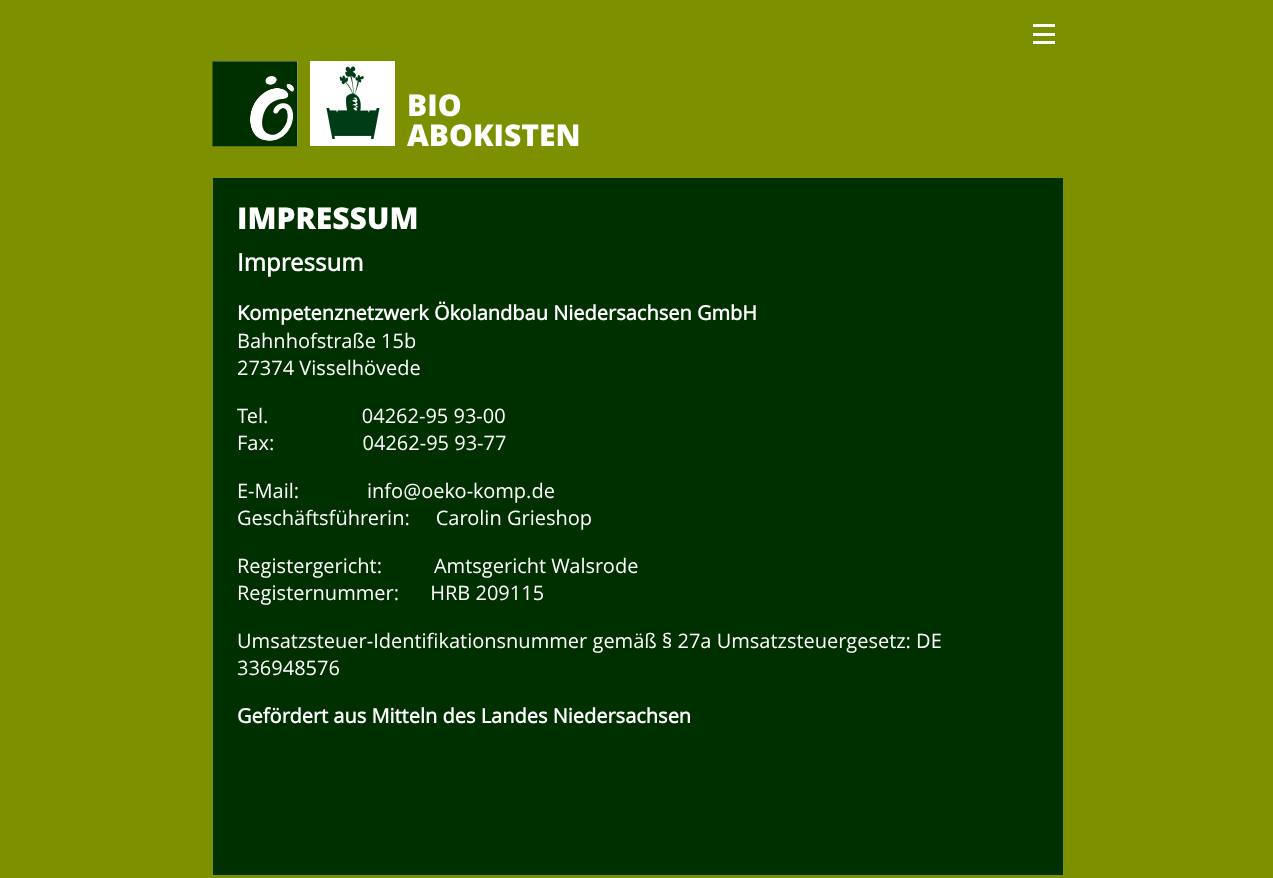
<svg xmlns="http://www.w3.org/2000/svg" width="1273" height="878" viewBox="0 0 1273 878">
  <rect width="100%" height="100%" fill="#7d9000"/>
  <path d="M1033 24h22v3H1033z" fill="#fff"/>
  <path d="M1033 33h22v3H1033z" fill="#fff"/>
  <path d="M1033 41h22v3H1033z" fill="#fff"/>
  <path d="M213 61h85v85H213z" fill="#fff"/>
  <image x="212" y="61" width="86" height="86" href="img/1.png"/>
  <path d="M310 61h85v85H310z" fill="#fff"/>
  <image x="326" y="66" width="54" height="73" href="img/2.png"/>
  <path d="M213 178h850v697H213z" fill="#003000"/>
  <g font-family="Open Sans" font-size="30" font-weight="800" fill="#fff">
    <text x="407" y="116">BIO</text>
    <text x="407" y="146">ABOKISTEN</text>
    <text x="237" y="229">IMPRESSUM</text>
  </g>
  <text x="237" y="271" font-family="Open Sans" font-size="24" font-weight="bold" fill="#fff">Impressum</text>
  <text x="237" y="320" font-family="Open Sans" font-size="20" font-weight="bold" fill="#fff">Kompetenznetzwerk Ökolandbau Niedersachsen GmbH</text>
  <g font-family="Open Sans" font-size="20" fill="#fff">
    <text x="237" y="348">Bahnhofstraße 15b</text>
    <text x="237" y="375">27374 Visselhövede</text>
    <text x="237" y="423" xml:space="preserve">Tel.                  04262-95 93-00</text>
    <text x="237" y="450" xml:space="preserve">Fax:                 04262-95 93-77</text>
    <text x="237" y="498">E-Mail:</text>
    <text x="367" y="498">info@oeko-komp.de</text>
    <text x="237" y="525" xml:space="preserve">Geschäftsführerin:     Carolin Grieshop</text>
    <text x="237" y="573" xml:space="preserve">Registergericht:          Amtsgericht Walsrode</text>
    <text x="237" y="600" xml:space="preserve">Registernummer:      HRB 209115</text>
    <text x="237" y="648">Umsatzsteuer-Identifikationsnummer gemäß § 27a Umsatzsteuergesetz: DE</text>
    <text x="237" y="675">336948576</text>
  </g>
  <text x="237" y="723" font-family="Open Sans" font-size="20" font-weight="bold" fill="#fff">Gefördert aus Mitteln des Landes Niedersachsen</text>
</svg>
